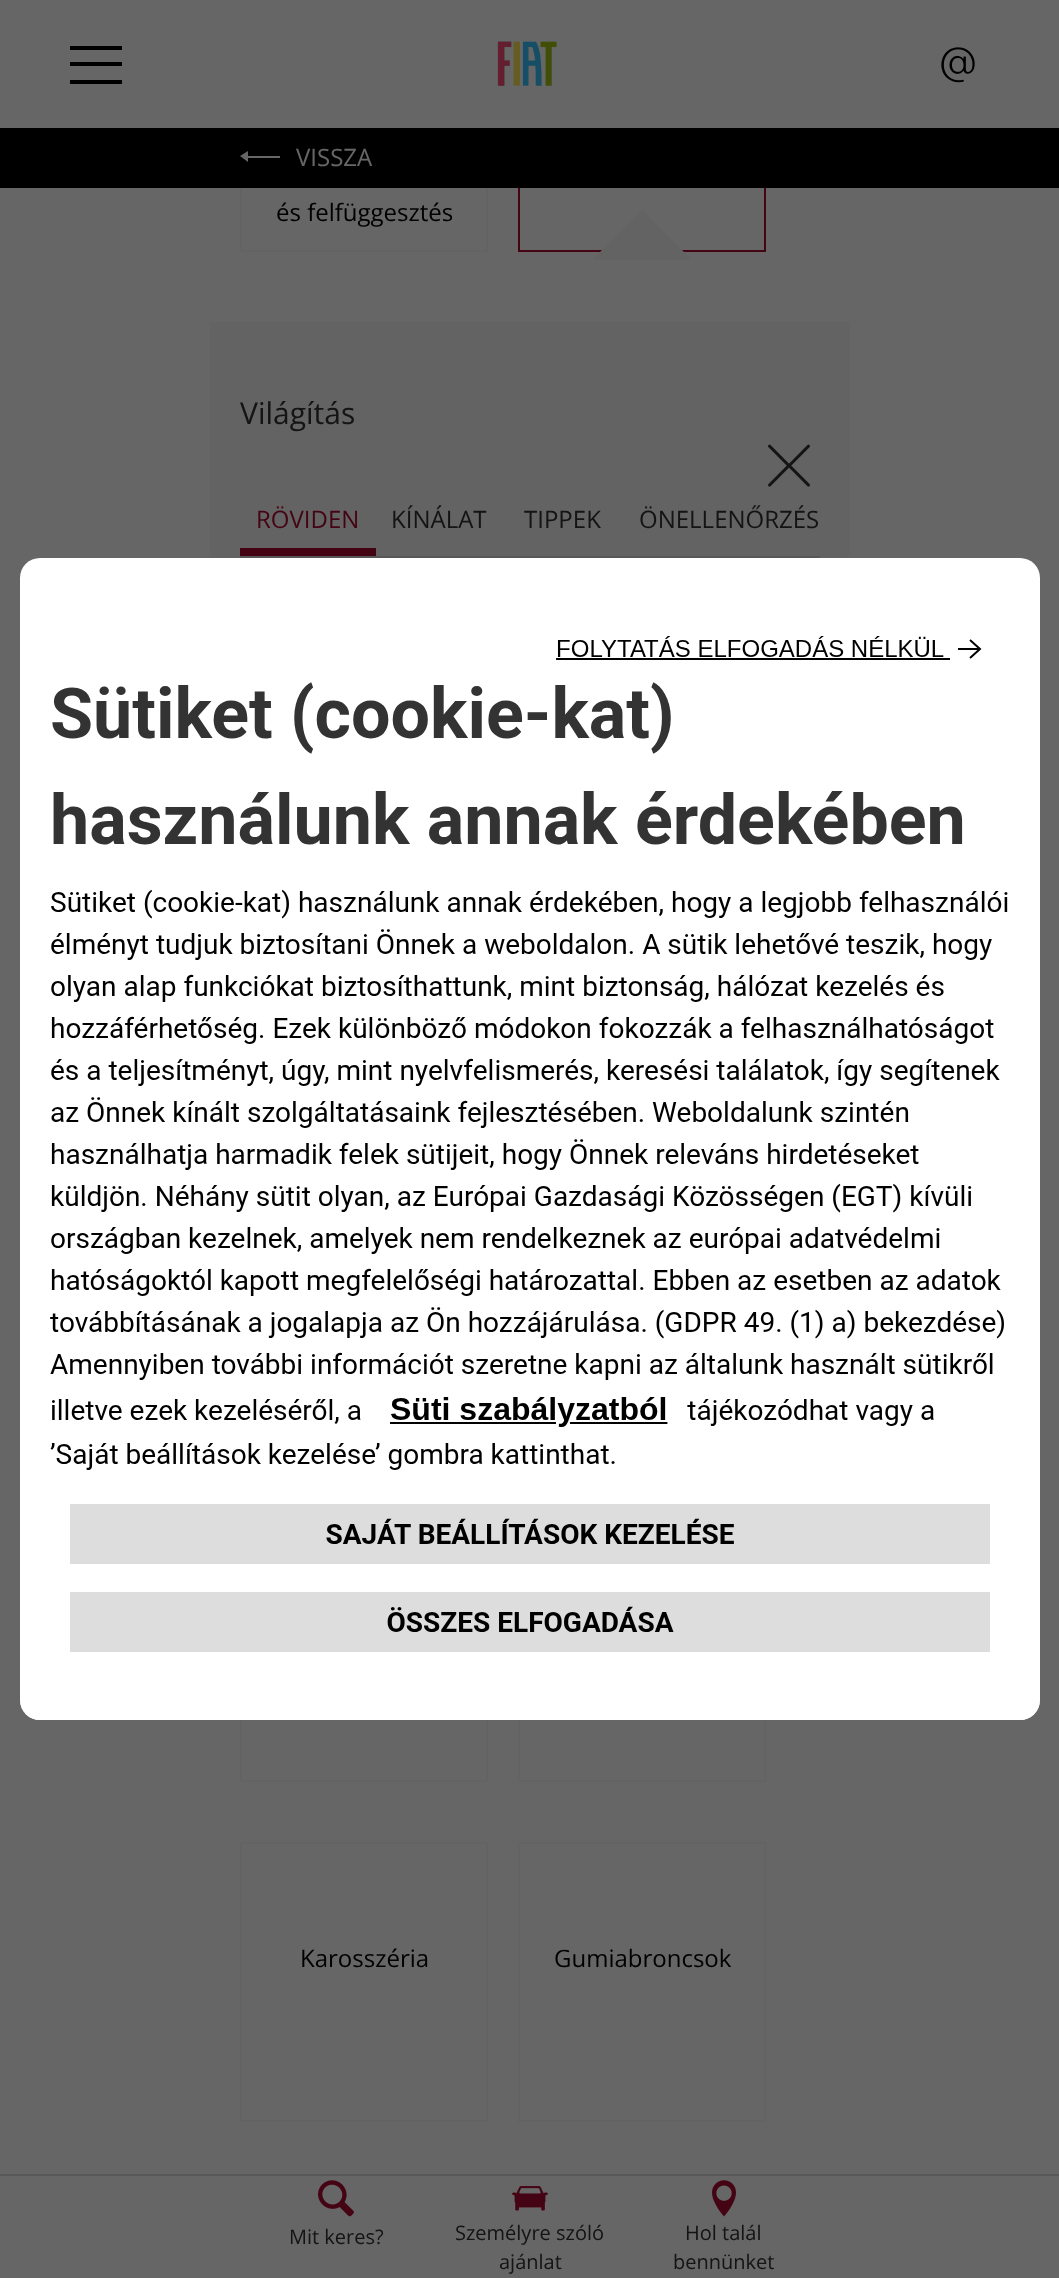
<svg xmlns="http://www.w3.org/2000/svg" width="1059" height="2278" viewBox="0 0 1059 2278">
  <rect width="100%" height="100%" fill="#fff"/>
  <path d="M241 -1h246v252H241z" fill="none" stroke="#f7f7f7" stroke-width="2"/>
  <path d="M519 -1h246v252H519z" fill="none" stroke="#ad0c33" stroke-width="2"/>
  <path d="M240 0h526v128H240z" fill="#fff"/>
  <path d="M70 46h52v4H70z" fill="#000"/>
  <path d="M70 62h52v4H70z" fill="#000"/>
  <path d="M70 80h52v4H70z" fill="#000"/>
  <image x="497" y="41" width="60" height="45" href="img/2.png"/>
  <image x="941" y="47" width="34" height="36" href="img/3.png"/>
  <path d="M0 128h1059v60H0z" fill="#000"/>
  <path d="M240 156L248 162V158H280V156H248V151Z" fill="#fff"/>
  <path d="M692 260H592L642 210Z" fill="#f7f7f7"/>
  <path d="M210 322h640v236H210z" fill="#f7f7f7"/>
  <path d="M240 556h580v2H240z" fill="#ddd"/>
  <image x="768" y="444" width="42" height="43" href="img/4.png"/>
  <path d="M240 548h136v8H240z" fill="#ad0c33"/>
  <path d="M241 1503h246v278H241z" fill="none" stroke="#f7f7f7" stroke-width="2"/>
  <path d="M519 1503h246v278H519z" fill="none" stroke="#f7f7f7" stroke-width="2"/>
  <path d="M241 1843h246v278H241z" fill="none" stroke="#f7f7f7" stroke-width="2"/>
  <path d="M519 1843h246v278H519z" fill="none" stroke="#f7f7f7" stroke-width="2"/>
  <path d="M0 2174h1059v2H0z" fill="#ddd"/>
  <image x="318" y="2180" width="36" height="37" href="img/5.png"/>
  <image x="512" y="2186" width="36" height="25" href="img/6.png"/>
  <image x="712" y="2180" width="24" height="37" href="img/7.png"/>
  <text x="296" y="166" font-family="Open Sans" font-size="24" fill="#fff">VISSZA</text>
  <text x="276" y="221" font-family="Open Sans" font-size="24" fill="#000">és felfüggesztés</text>
  <text x="240" y="424" font-family="Open Sans" font-size="30" fill="#333">Világítás</text>
  <text x="256" y="528" font-family="Open Sans" font-size="24" fill="#ad0c33">RÖVIDEN</text>
  <g font-family="Open Sans" font-size="24" fill="#333">
    <text x="391" y="528">KÍNÁLAT</text>
    <text x="524" y="528">TIPPEK</text>
    <text x="639" y="528">ÖNELLENŐRZÉS</text>
  </g>
  <g font-family="Open Sans" font-size="24" fill="#000">
    <text x="300" y="1967">Karosszéria</text>
    <text x="554" y="1967">Gumiabroncsok</text>
  </g>
  <g font-family="Open Sans" font-size="20" fill="#333">
    <text x="289" y="2244">Mit keres?</text>
    <text x="455" y="2240">Személyre szóló</text>
    <text x="499" y="2269">ajánlat</text>
    <text x="685" y="2240">Hol talál</text>
    <text x="673" y="2269">bennünket</text>
  </g>
  <image x="0" y="0" width="1059" height="2278" href="img/1.png"/>
</svg>
